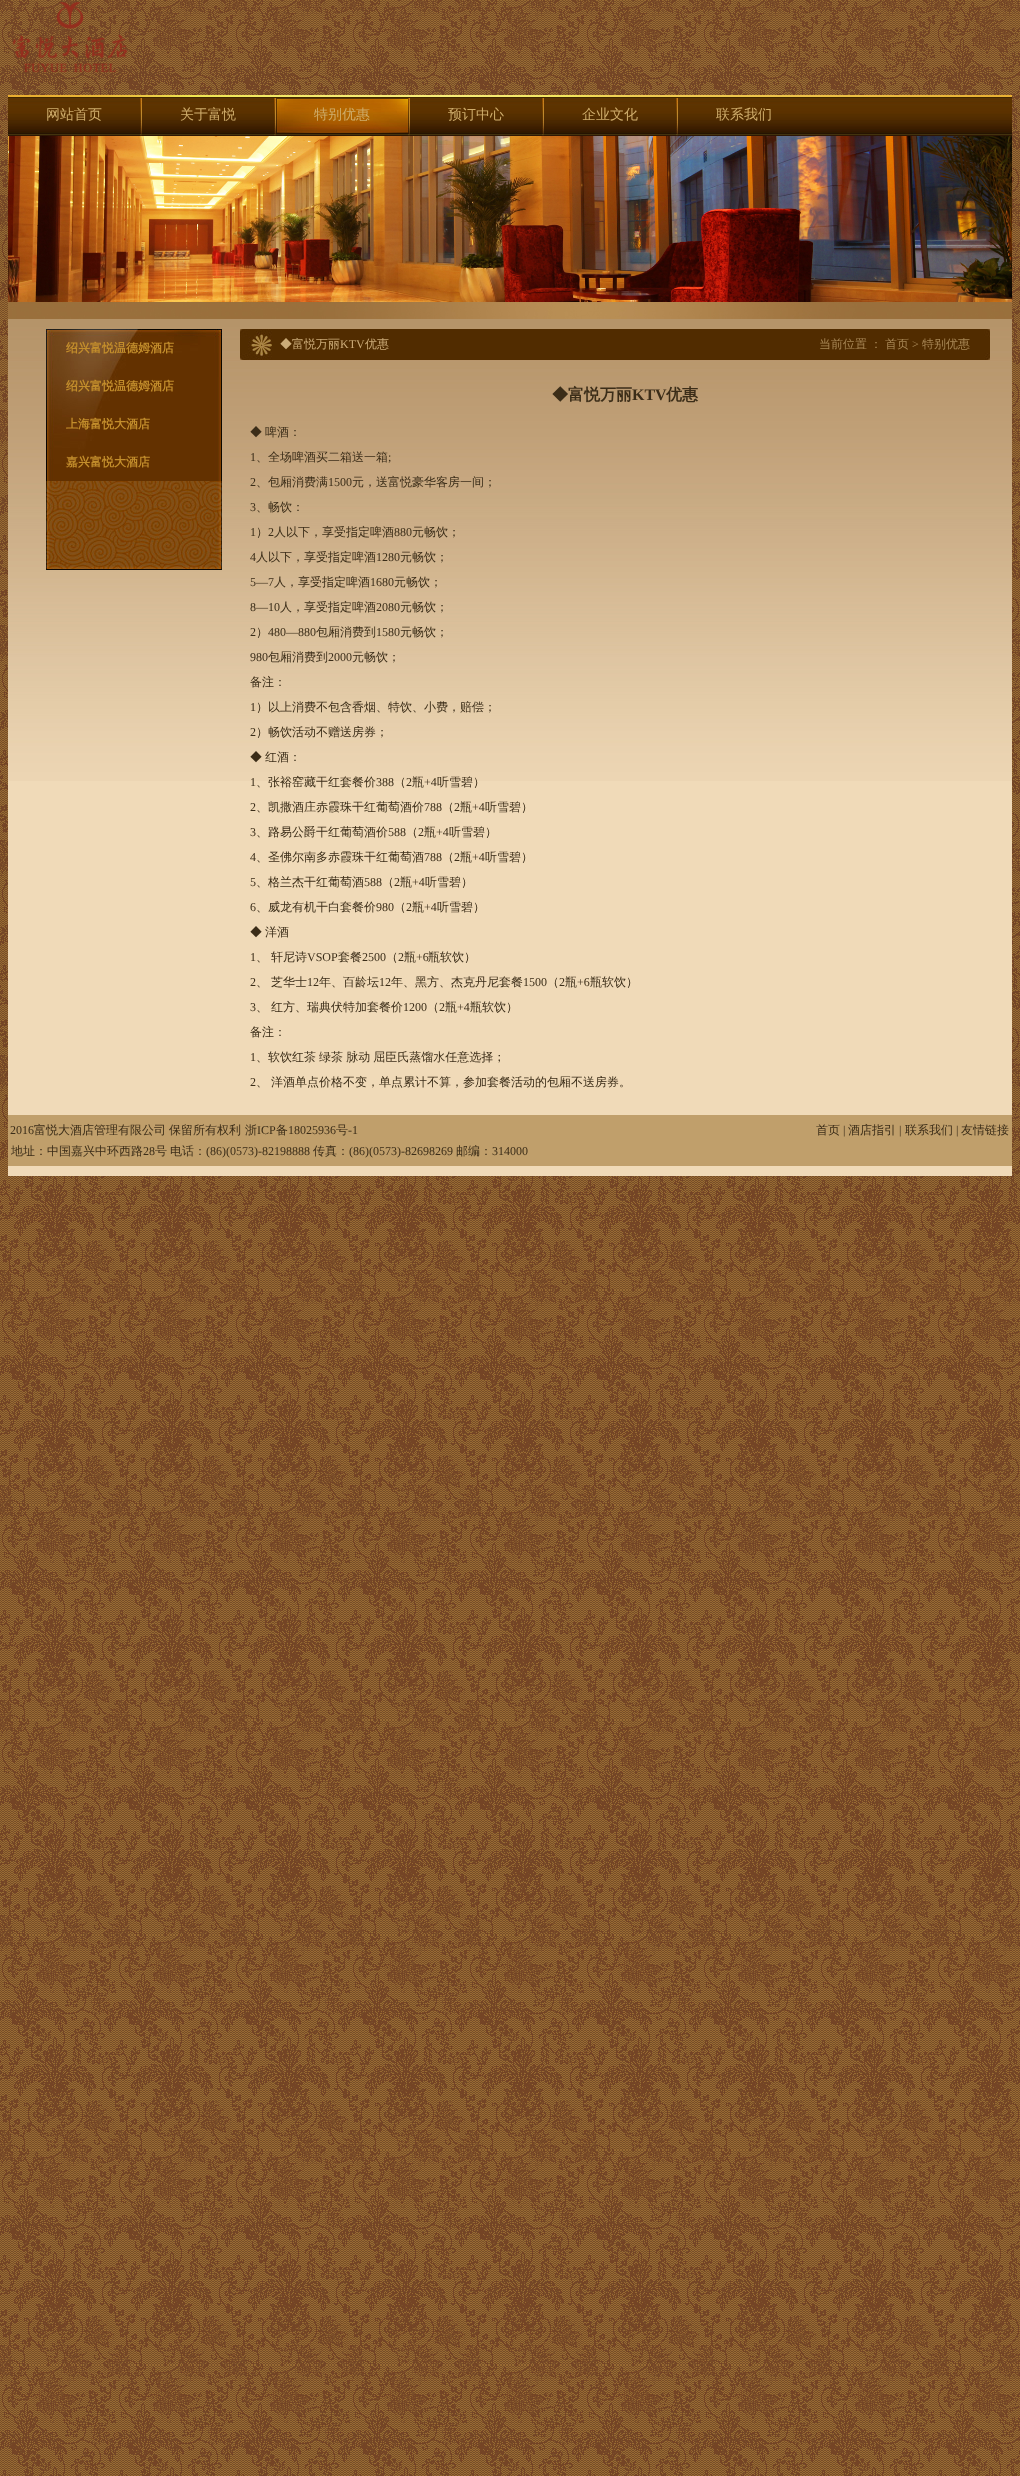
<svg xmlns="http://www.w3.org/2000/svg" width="1020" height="2476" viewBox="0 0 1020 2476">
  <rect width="100%" height="100%" fill="#fff"/>
  <image x="0" y="0" width="1020" height="2476" href="img/1.png"/>
  <image x="12" y="2" width="116" height="71" href="img/2.png"/>
  <image x="8" y="95" width="1004" height="2" href="img/3.png"/>
  <image x="8" y="97" width="1004" height="39" href="img/4.png"/>
  <image x="140" y="97" width="2" height="39" href="img/5.png"/>
  <image x="274" y="97" width="2" height="39" href="img/5.png"/>
  <image x="408" y="97" width="2" height="39" href="img/5.png"/>
  <image x="277" y="99" width="131" height="34" href="img/6.png"/>
  <image x="542" y="97" width="2" height="39" href="img/5.png"/>
  <image x="676" y="97" width="2" height="39" href="img/5.png"/>
  <image x="8" y="136" width="1004" height="183" href="img/7.png"/>
  <path d="M8 781h1004v395H8z" fill="#f0dab8"/>
  <image x="8" y="319" width="1004" height="462" href="img/8.png"/>
  <image x="46" y="329" width="176" height="152" href="img/9.png"/>
  <image x="46" y="481" width="176" height="89" href="img/10.png"/>
  <image x="240" y="329" width="750" height="31" href="img/11.png"/>
  <path d="M8 1115h1004v51H8z" fill="#c09f6b"/>
  <g font-family="WenQuanYi Zen Hei" font-size="14" font-weight="500" fill="#cfad6b">
    <text x="46" y="119">网站首页</text>
    <text x="180" y="119">关于富悦</text>
    <text x="314" y="119">特别优惠</text>
    <text x="448" y="119">预订中心</text>
    <text x="582" y="119">企业文化</text>
    <text x="716" y="119">联系我们</text>
  </g>
  <g font-family="WenQuanYi Zen Hei" font-size="12" font-weight="bold" fill="#c38e2c">
    <text x="66" y="352">绍兴富悦温德姆酒店</text>
    <text x="66" y="390">绍兴富悦温德姆酒店</text>
    <text x="66" y="428">上海富悦大酒店</text>
    <text x="66" y="466">嘉兴富悦大酒店</text>
  </g>
  <text x="280" y="348" font-family="WenQuanYi Zen Hei" font-size="12" font-weight="500" fill="#cbab77">◆富悦万丽</text>
  <text x="340" y="348" font-family="Liberation Serif" font-size="12" fill="#cbab77">KTV</text>
  <text x="365" y="348" font-family="WenQuanYi Zen Hei" font-size="12" font-weight="500" fill="#cbab77">优惠</text>
  <g font-family="WenQuanYi Zen Hei" font-size="12" font-weight="500" fill="#a88755">
    <text x="819" y="348" word-spacing="-0.5">当前位置 ：</text>
    <text x="885" y="348">首页</text>
  </g>
  <text x="912" y="348" font-family="Liberation Serif" font-size="12" fill="#a88755">&gt;</text>
  <text x="922" y="348" font-family="WenQuanYi Zen Hei" font-size="12" font-weight="500" fill="#a88755">特别优惠</text>
  <text x="552" y="400" font-family="WenQuanYi Zen Hei" font-size="16" font-weight="bold" fill="#3b2d18">◆富悦万丽</text>
  <text x="632" y="400" font-family="Liberation Serif" font-size="16" font-weight="bold" fill="#3b2d18">KTV</text>
  <text x="666" y="400" font-family="WenQuanYi Zen Hei" font-size="16" font-weight="bold" fill="#3b2d18">优惠</text>
  <text x="250" y="436" word-spacing="-0.5" font-family="WenQuanYi Zen Hei" font-size="12" font-weight="500" fill="#3b2d18">◆ 啤酒：</text>
  <text x="250" y="461" font-family="Liberation Serif" font-size="12" fill="#3b2d18">1</text>
  <text x="256" y="461" font-family="WenQuanYi Zen Hei" font-size="12" font-weight="500" fill="#3b2d18">、全场啤酒买二箱送一箱</text>
  <g font-family="Liberation Serif" font-size="12" fill="#3b2d18">
    <text x="388" y="461">;</text>
    <text x="250" y="486">2</text>
  </g>
  <text x="256" y="486" font-family="WenQuanYi Zen Hei" font-size="12" font-weight="500" fill="#3b2d18">、包厢消费满</text>
  <text x="328" y="486" font-family="Liberation Serif" font-size="12" fill="#3b2d18">1500</text>
  <text x="352" y="486" font-family="WenQuanYi Zen Hei" font-size="12" font-weight="500" fill="#3b2d18">元，送富悦豪华客房一间；</text>
  <text x="250" y="511" font-family="Liberation Serif" font-size="12" fill="#3b2d18">3</text>
  <text x="256" y="511" font-family="WenQuanYi Zen Hei" font-size="12" font-weight="500" fill="#3b2d18">、畅饮：</text>
  <text x="250" y="536" font-family="Liberation Serif" font-size="12" fill="#3b2d18">1</text>
  <text x="256" y="536" font-family="WenQuanYi Zen Hei" font-size="12" font-weight="500" fill="#3b2d18">）</text>
  <text x="268" y="536" font-family="Liberation Serif" font-size="12" fill="#3b2d18">2</text>
  <text x="274" y="536" font-family="WenQuanYi Zen Hei" font-size="12" font-weight="500" fill="#3b2d18">人以下，享受指定啤酒</text>
  <text x="394" y="536" font-family="Liberation Serif" font-size="12" fill="#3b2d18">880</text>
  <text x="412" y="536" font-family="WenQuanYi Zen Hei" font-size="12" font-weight="500" fill="#3b2d18">元畅饮；</text>
  <text x="250" y="561" font-family="Liberation Serif" font-size="12" fill="#3b2d18">4</text>
  <text x="256" y="561" font-family="WenQuanYi Zen Hei" font-size="12" font-weight="500" fill="#3b2d18">人以下，享受指定啤酒</text>
  <text x="376" y="561" font-family="Liberation Serif" font-size="12" fill="#3b2d18">1280</text>
  <text x="400" y="561" font-family="WenQuanYi Zen Hei" font-size="12" font-weight="500" fill="#3b2d18">元畅饮；</text>
  <text x="250" y="586" font-family="Liberation Serif" font-size="12" fill="#3b2d18">5—7</text>
  <text x="274" y="586" font-family="WenQuanYi Zen Hei" font-size="12" font-weight="500" fill="#3b2d18">人，享受指定啤酒</text>
  <text x="370" y="586" font-family="Liberation Serif" font-size="12" fill="#3b2d18">1680</text>
  <text x="394" y="586" font-family="WenQuanYi Zen Hei" font-size="12" font-weight="500" fill="#3b2d18">元畅饮；</text>
  <text x="250" y="611" font-family="Liberation Serif" font-size="12" fill="#3b2d18">8—10</text>
  <text x="280" y="611" font-family="WenQuanYi Zen Hei" font-size="12" font-weight="500" fill="#3b2d18">人，享受指定啤酒</text>
  <text x="376" y="611" font-family="Liberation Serif" font-size="12" fill="#3b2d18">2080</text>
  <text x="400" y="611" font-family="WenQuanYi Zen Hei" font-size="12" font-weight="500" fill="#3b2d18">元畅饮；</text>
  <text x="250" y="636" font-family="Liberation Serif" font-size="12" fill="#3b2d18">2</text>
  <text x="256" y="636" font-family="WenQuanYi Zen Hei" font-size="12" font-weight="500" fill="#3b2d18">）</text>
  <text x="268" y="636" font-family="Liberation Serif" font-size="12" fill="#3b2d18">480—880</text>
  <text x="316" y="636" font-family="WenQuanYi Zen Hei" font-size="12" font-weight="500" fill="#3b2d18">包厢消费到</text>
  <text x="376" y="636" font-family="Liberation Serif" font-size="12" fill="#3b2d18">1580</text>
  <text x="400" y="636" font-family="WenQuanYi Zen Hei" font-size="12" font-weight="500" fill="#3b2d18">元畅饮；</text>
  <text x="250" y="661" font-family="Liberation Serif" font-size="12" fill="#3b2d18">980</text>
  <text x="268" y="661" font-family="WenQuanYi Zen Hei" font-size="12" font-weight="500" fill="#3b2d18">包厢消费到</text>
  <text x="328" y="661" font-family="Liberation Serif" font-size="12" fill="#3b2d18">2000</text>
  <g font-family="WenQuanYi Zen Hei" font-size="12" font-weight="500" fill="#3b2d18">
    <text x="352" y="661">元畅饮；</text>
    <text x="250" y="686">备注：</text>
  </g>
  <text x="250" y="711" font-family="Liberation Serif" font-size="12" fill="#3b2d18">1</text>
  <text x="256" y="711" font-family="WenQuanYi Zen Hei" font-size="12" font-weight="500" fill="#3b2d18">）以上消费不包含香烟、特饮、小费，赔偿；</text>
  <text x="250" y="736" font-family="Liberation Serif" font-size="12" fill="#3b2d18">2</text>
  <g font-family="WenQuanYi Zen Hei" font-size="12" font-weight="500" fill="#3b2d18">
    <text x="256" y="736">）畅饮活动不赠送房券；</text>
    <text x="250" y="761" word-spacing="-0.5">◆ 红酒：</text>
  </g>
  <text x="250" y="786" font-family="Liberation Serif" font-size="12" fill="#3b2d18">1</text>
  <text x="256" y="786" font-family="WenQuanYi Zen Hei" font-size="12" font-weight="500" fill="#3b2d18">、张裕窑藏干红套餐价</text>
  <text x="376" y="786" font-family="Liberation Serif" font-size="12" fill="#3b2d18">388</text>
  <text x="394" y="786" font-family="WenQuanYi Zen Hei" font-size="12" font-weight="500" fill="#3b2d18">（</text>
  <text x="406" y="786" font-family="Liberation Serif" font-size="12" fill="#3b2d18">2</text>
  <text x="412" y="786" font-family="WenQuanYi Zen Hei" font-size="12" font-weight="500" fill="#3b2d18">瓶</text>
  <text x="424" y="786" font-family="Liberation Serif" font-size="12" fill="#3b2d18">+4</text>
  <text x="437" y="786" font-family="WenQuanYi Zen Hei" font-size="12" font-weight="500" fill="#3b2d18">听雪碧）</text>
  <text x="250" y="811" font-family="Liberation Serif" font-size="12" fill="#3b2d18">2</text>
  <text x="256" y="811" font-family="WenQuanYi Zen Hei" font-size="12" font-weight="500" fill="#3b2d18">、凯撒酒庄赤霞珠干红葡萄酒价</text>
  <text x="424" y="811" font-family="Liberation Serif" font-size="12" fill="#3b2d18">788</text>
  <text x="442" y="811" font-family="WenQuanYi Zen Hei" font-size="12" font-weight="500" fill="#3b2d18">（</text>
  <text x="454" y="811" font-family="Liberation Serif" font-size="12" fill="#3b2d18">2</text>
  <text x="460" y="811" font-family="WenQuanYi Zen Hei" font-size="12" font-weight="500" fill="#3b2d18">瓶</text>
  <text x="472" y="811" font-family="Liberation Serif" font-size="12" fill="#3b2d18">+4</text>
  <text x="485" y="811" font-family="WenQuanYi Zen Hei" font-size="12" font-weight="500" fill="#3b2d18">听雪碧）</text>
  <text x="250" y="836" font-family="Liberation Serif" font-size="12" fill="#3b2d18">3</text>
  <text x="256" y="836" font-family="WenQuanYi Zen Hei" font-size="12" font-weight="500" fill="#3b2d18">、路易公爵干红葡萄酒价</text>
  <text x="388" y="836" font-family="Liberation Serif" font-size="12" fill="#3b2d18">588</text>
  <text x="406" y="836" font-family="WenQuanYi Zen Hei" font-size="12" font-weight="500" fill="#3b2d18">（</text>
  <text x="418" y="836" font-family="Liberation Serif" font-size="12" fill="#3b2d18">2</text>
  <text x="424" y="836" font-family="WenQuanYi Zen Hei" font-size="12" font-weight="500" fill="#3b2d18">瓶</text>
  <text x="436" y="836" font-family="Liberation Serif" font-size="12" fill="#3b2d18">+4</text>
  <text x="449" y="836" font-family="WenQuanYi Zen Hei" font-size="12" font-weight="500" fill="#3b2d18">听雪碧）</text>
  <text x="250" y="861" font-family="Liberation Serif" font-size="12" fill="#3b2d18">4</text>
  <text x="256" y="861" font-family="WenQuanYi Zen Hei" font-size="12" font-weight="500" fill="#3b2d18">、圣佛尔南多赤霞珠干红葡萄酒</text>
  <text x="424" y="861" font-family="Liberation Serif" font-size="12" fill="#3b2d18">788</text>
  <text x="442" y="861" font-family="WenQuanYi Zen Hei" font-size="12" font-weight="500" fill="#3b2d18">（</text>
  <text x="454" y="861" font-family="Liberation Serif" font-size="12" fill="#3b2d18">2</text>
  <text x="460" y="861" font-family="WenQuanYi Zen Hei" font-size="12" font-weight="500" fill="#3b2d18">瓶</text>
  <text x="472" y="861" font-family="Liberation Serif" font-size="12" fill="#3b2d18">+4</text>
  <text x="485" y="861" font-family="WenQuanYi Zen Hei" font-size="12" font-weight="500" fill="#3b2d18">听雪碧）</text>
  <text x="250" y="886" font-family="Liberation Serif" font-size="12" fill="#3b2d18">5</text>
  <text x="256" y="886" font-family="WenQuanYi Zen Hei" font-size="12" font-weight="500" fill="#3b2d18">、格兰杰干红葡萄酒</text>
  <text x="364" y="886" font-family="Liberation Serif" font-size="12" fill="#3b2d18">588</text>
  <text x="382" y="886" font-family="WenQuanYi Zen Hei" font-size="12" font-weight="500" fill="#3b2d18">（</text>
  <text x="394" y="886" font-family="Liberation Serif" font-size="12" fill="#3b2d18">2</text>
  <text x="400" y="886" font-family="WenQuanYi Zen Hei" font-size="12" font-weight="500" fill="#3b2d18">瓶</text>
  <text x="412" y="886" font-family="Liberation Serif" font-size="12" fill="#3b2d18">+4</text>
  <text x="425" y="886" font-family="WenQuanYi Zen Hei" font-size="12" font-weight="500" fill="#3b2d18">听雪碧）</text>
  <text x="250" y="911" font-family="Liberation Serif" font-size="12" fill="#3b2d18">6</text>
  <text x="256" y="911" font-family="WenQuanYi Zen Hei" font-size="12" font-weight="500" fill="#3b2d18">、威龙有机干白套餐价</text>
  <text x="376" y="911" font-family="Liberation Serif" font-size="12" fill="#3b2d18">980</text>
  <text x="394" y="911" font-family="WenQuanYi Zen Hei" font-size="12" font-weight="500" fill="#3b2d18">（</text>
  <text x="406" y="911" font-family="Liberation Serif" font-size="12" fill="#3b2d18">2</text>
  <text x="412" y="911" font-family="WenQuanYi Zen Hei" font-size="12" font-weight="500" fill="#3b2d18">瓶</text>
  <text x="424" y="911" font-family="Liberation Serif" font-size="12" fill="#3b2d18">+4</text>
  <g font-family="WenQuanYi Zen Hei" font-size="12" font-weight="500" fill="#3b2d18">
    <text x="437" y="911">听雪碧）</text>
    <text x="250" y="936" word-spacing="-0.5">◆ 洋酒</text>
  </g>
  <text x="250" y="961" font-family="Liberation Serif" font-size="12" fill="#3b2d18">1</text>
  <text x="256" y="961" word-spacing="-0.5" font-family="WenQuanYi Zen Hei" font-size="12" font-weight="500" fill="#3b2d18">、 轩尼诗</text>
  <text x="307" y="961" font-family="Liberation Serif" font-size="12" fill="#3b2d18">VSOP</text>
  <text x="338" y="961" font-family="WenQuanYi Zen Hei" font-size="12" font-weight="500" fill="#3b2d18">套餐</text>
  <text x="362" y="961" font-family="Liberation Serif" font-size="12" fill="#3b2d18">2500</text>
  <text x="386" y="961" font-family="WenQuanYi Zen Hei" font-size="12" font-weight="500" fill="#3b2d18">（</text>
  <text x="398" y="961" font-family="Liberation Serif" font-size="12" fill="#3b2d18">2</text>
  <text x="404" y="961" font-family="WenQuanYi Zen Hei" font-size="12" font-weight="500" fill="#3b2d18">瓶</text>
  <text x="416" y="961" font-family="Liberation Serif" font-size="12" fill="#3b2d18">+6</text>
  <text x="428" y="961" font-family="WenQuanYi Zen Hei" font-size="12" font-weight="500" fill="#3b2d18">瓶软饮）</text>
  <text x="250" y="986" font-family="Liberation Serif" font-size="12" fill="#3b2d18">2</text>
  <text x="256" y="986" word-spacing="-0.5" font-family="WenQuanYi Zen Hei" font-size="12" font-weight="500" fill="#3b2d18">、 芝华士</text>
  <text x="307" y="986" font-family="Liberation Serif" font-size="12" fill="#3b2d18">12</text>
  <text x="319" y="986" font-family="WenQuanYi Zen Hei" font-size="12" font-weight="500" fill="#3b2d18">年、百龄坛</text>
  <text x="379" y="986" font-family="Liberation Serif" font-size="12" fill="#3b2d18">12</text>
  <text x="391" y="986" font-family="WenQuanYi Zen Hei" font-size="12" font-weight="500" fill="#3b2d18">年、黑方、杰克丹尼套餐</text>
  <text x="523" y="986" font-family="Liberation Serif" font-size="12" fill="#3b2d18">1500</text>
  <text x="547" y="986" font-family="WenQuanYi Zen Hei" font-size="12" font-weight="500" fill="#3b2d18">（</text>
  <text x="559" y="986" font-family="Liberation Serif" font-size="12" fill="#3b2d18">2</text>
  <text x="565" y="986" font-family="WenQuanYi Zen Hei" font-size="12" font-weight="500" fill="#3b2d18">瓶</text>
  <text x="577" y="986" font-family="Liberation Serif" font-size="12" fill="#3b2d18">+6</text>
  <text x="590" y="986" font-family="WenQuanYi Zen Hei" font-size="12" font-weight="500" fill="#3b2d18">瓶软饮）</text>
  <text x="250" y="1011" font-family="Liberation Serif" font-size="12" fill="#3b2d18">3</text>
  <text x="256" y="1011" word-spacing="-0.5" font-family="WenQuanYi Zen Hei" font-size="12" font-weight="500" fill="#3b2d18">、 红方、瑞典伏特加套餐价</text>
  <text x="403" y="1011" font-family="Liberation Serif" font-size="12" fill="#3b2d18">1200</text>
  <text x="427" y="1011" font-family="WenQuanYi Zen Hei" font-size="12" font-weight="500" fill="#3b2d18">（</text>
  <text x="439" y="1011" font-family="Liberation Serif" font-size="12" fill="#3b2d18">2</text>
  <text x="445" y="1011" font-family="WenQuanYi Zen Hei" font-size="12" font-weight="500" fill="#3b2d18">瓶</text>
  <text x="457" y="1011" font-family="Liberation Serif" font-size="12" fill="#3b2d18">+4</text>
  <g font-family="WenQuanYi Zen Hei" font-size="12" font-weight="500" fill="#3b2d18">
    <text x="470" y="1011">瓶软饮）</text>
    <text x="250" y="1036">备注：</text>
  </g>
  <text x="250" y="1061" font-family="Liberation Serif" font-size="12" fill="#3b2d18">1</text>
  <text x="256" y="1061" word-spacing="-0.5" font-family="WenQuanYi Zen Hei" font-size="12" font-weight="500" fill="#3b2d18">、软饮红茶 绿茶 脉动 屈臣氏蒸馏水任意选择；</text>
  <text x="250" y="1086" font-family="Liberation Serif" font-size="12" fill="#3b2d18">2</text>
  <text x="256" y="1086" word-spacing="-0.5" font-family="WenQuanYi Zen Hei" font-size="12" font-weight="500" fill="#3b2d18">、 洋酒单点价格不变，单点累计不算，参加套餐活动的包厢不送房券。</text>
  <text x="10" y="1134" font-family="Liberation Serif" font-size="12" fill="#3b2d18">2016</text>
  <g font-family="WenQuanYi Zen Hei" font-size="12" font-weight="500" fill="#3b2d18">
    <text x="34" y="1134" word-spacing="-0.5">富悦大酒店管理有限公司 保留所有权利</text>
    <text x="245" y="1134">浙</text>
  </g>
  <text x="257" y="1134" font-family="Liberation Serif" font-size="12" fill="#3b2d18">ICP</text>
  <text x="276" y="1134" font-family="WenQuanYi Zen Hei" font-size="12" font-weight="500" fill="#3b2d18">备</text>
  <text x="288" y="1134" font-family="Liberation Serif" font-size="12" fill="#3b2d18">18025936</text>
  <text x="336" y="1134" font-family="WenQuanYi Zen Hei" font-size="12" font-weight="500" fill="#3b2d18">号</text>
  <text x="348" y="1134" font-family="Liberation Serif" font-size="12" fill="#3b2d18">-1</text>
  <text x="816" y="1134" font-family="WenQuanYi Zen Hei" font-size="12" font-weight="500" fill="#3b2d18">首页</text>
  <text x="843" y="1134" font-family="Liberation Serif" font-size="12" fill="#3b2d18">|</text>
  <text x="848" y="1134" font-family="WenQuanYi Zen Hei" font-size="12" font-weight="500" fill="#3b2d18">酒店指引</text>
  <text x="899" y="1134" font-family="Liberation Serif" font-size="12" fill="#3b2d18">|</text>
  <text x="905" y="1134" font-family="WenQuanYi Zen Hei" font-size="12" font-weight="500" fill="#3b2d18">联系我们</text>
  <text x="956" y="1134" font-family="Liberation Serif" font-size="12" fill="#3b2d18">|</text>
  <g font-family="WenQuanYi Zen Hei" font-size="12" font-weight="500" fill="#3b2d18">
    <text x="961" y="1134">友情链接</text>
    <text x="11" y="1155">地址：中国嘉兴中环西路</text>
  </g>
  <text x="143" y="1155" font-family="Liberation Serif" font-size="12" fill="#3b2d18">28</text>
  <g font-family="WenQuanYi Zen Hei" font-size="12" font-weight="500" fill="#3b2d18">
    <text x="155" y="1155">号</text>
    <text x="170" y="1155">电话：</text>
  </g>
  <text x="206" y="1155" font-family="Liberation Serif" font-size="12" fill="#3b2d18">(86)(0573)-82198888</text>
  <text x="313" y="1155" font-family="WenQuanYi Zen Hei" font-size="12" font-weight="500" fill="#3b2d18">传真：</text>
  <text x="349" y="1155" font-family="Liberation Serif" font-size="12" fill="#3b2d18">(86)(0573)-82698269</text>
  <text x="456" y="1155" font-family="WenQuanYi Zen Hei" font-size="12" font-weight="500" fill="#3b2d18">邮编：</text>
  <text x="492" y="1155" font-family="Liberation Serif" font-size="12" fill="#3b2d18">314000</text>
</svg>
